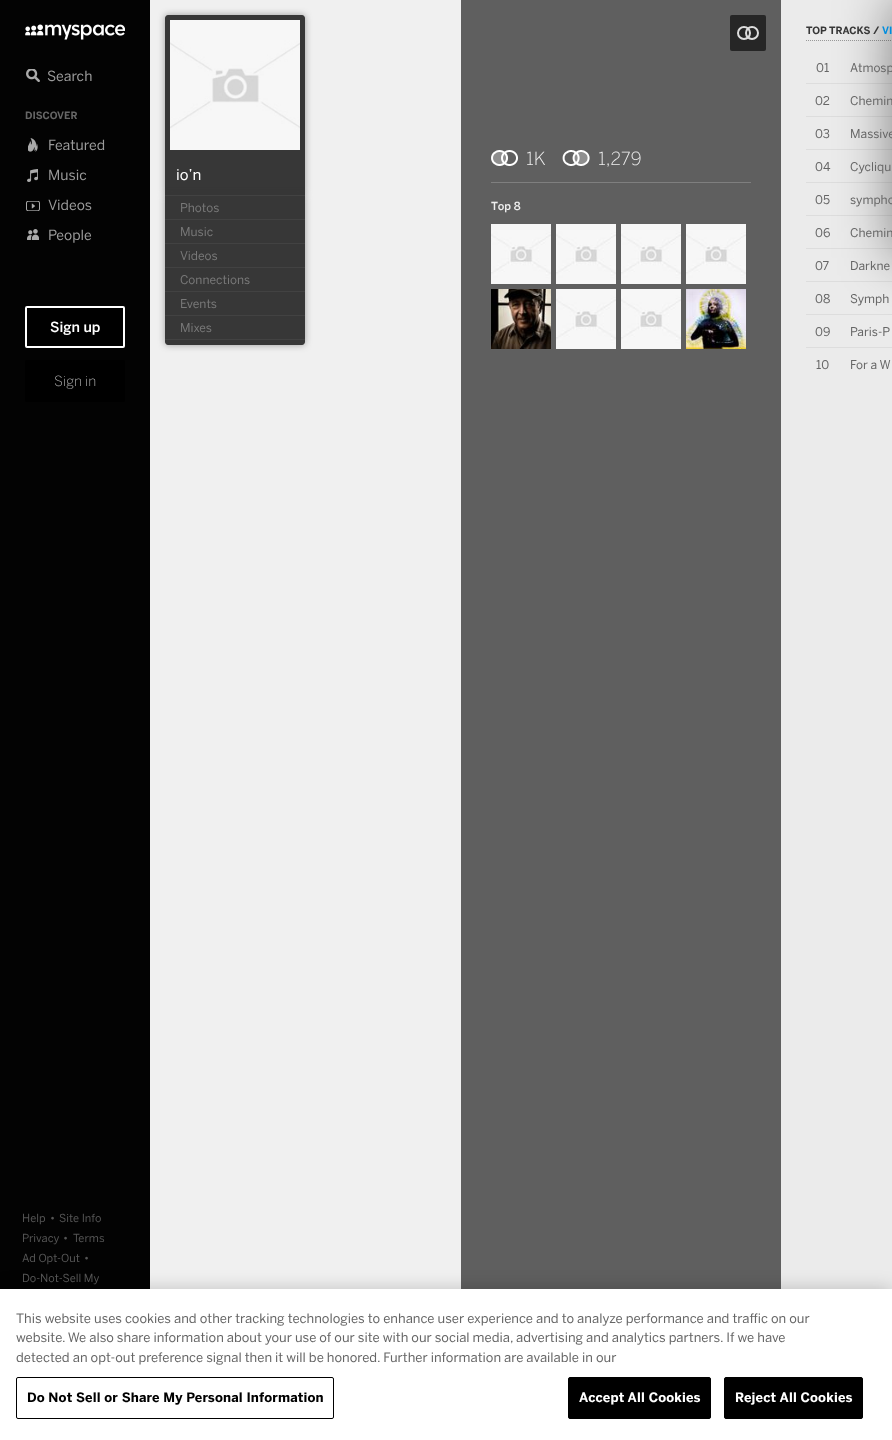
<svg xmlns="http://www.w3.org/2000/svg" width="892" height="1440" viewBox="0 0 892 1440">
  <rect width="100%" height="100%" fill="#f0f0f0"/>
  <path d="M781 0h111v1289H781z" fill="#ebebeb"/>
  <path d="M806 40.5H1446" fill="none" stroke="#999" stroke-dasharray="1 1"/>
  <path d="M806 83h86v1H806z" fill="#ddd"/>
  <path d="M806 116h86v1H806z" fill="#ddd"/>
  <path d="M806 149h86v1H806z" fill="#ddd"/>
  <path d="M806 182h86v1H806z" fill="#ddd"/>
  <path d="M806 215h86v1H806z" fill="#ddd"/>
  <path d="M806 248h86v1H806z" fill="#ddd"/>
  <path d="M806 281h86v1H806z" fill="#ddd"/>
  <path d="M806 314h86v1H806z" fill="#ddd"/>
  <rect x="892" width="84" height="258" rx="3" fill="#00000073" filter="blur(27px)"/>
  <path d="M0 0h150v1289H0z" fill="#030303"/>
  <image x="25" y="24" width="100" height="16" href="img/1.png"/>
  <image x="26" y="69" width="14" height="13" href="img/2.png"/>
  <image x="28" y="138" width="10" height="14" href="img/3.png"/>
  <image x="27" y="169" width="11" height="13" href="img/4.png"/>
  <image x="26" y="201" width="14" height="10" href="img/5.png"/>
  <image x="27" y="229" width="12" height="11" href="img/6.png"/>
  <rect x="26" y="307" width="98" height="40" rx="1" fill="#000" stroke="#fff" stroke-width="2"/>
  <rect x="25" y="360" width="100" height="42" rx="2" fill="#000"/>
  <rect x="165" y="15" width="140" height="180" rx="3" fill="#32323273" filter="blur(3.5px)"/>
  <path d="M168 15H302C303.5 15 305 16.5 305 18V195H165V18C165 16.5 166.5 15 168 15Z" fill="#373737"/>
  <image x="170" y="20" width="130" height="130" href="img/7.png"/>
  <rect x="165" y="195" width="140" height="150" rx="3" fill="#32323273" filter="blur(3.5px)"/>
  <path d="M165 195H305V342C305 343.5 303.5 345 302 345H168C166.5 345 165 343.5 165 342Z" fill="#373737"/>
  <path d="M165 195h140v1H165z" fill="#424242"/>
  <path d="M165 339h140v1H165z" fill="#424242"/>
  <path d="M165 219h140v1H165z" fill="#424242"/>
  <path d="M165 243h140v1H165z" fill="#424242"/>
  <path d="M165 267h140v1H165z" fill="#424242"/>
  <path d="M165 291h140v1H165z" fill="#424242"/>
  <path d="M165 315h140v1H165z" fill="#424242"/>
  <path d="M461 0h320v1289H461z" fill="#5f5f5f"/>
  <rect x="730" y="15" width="36" height="36" rx="2" fill="#262626"/>
  <circle cx="752" cy="33" r="6" fill="none" stroke="#ddd" stroke-width="2"/>
  <circle cx="744" cy="33" r="6" fill="none" stroke="#ddd" stroke-width="2"/>
  <image x="491" y="150" width="27" height="16" href="img/8.png"/>
  <image x="562" y="150" width="28" height="16" href="img/9.png"/>
  <path d="M491 182h260v1H491z" fill="#7f7f7f"/>
  <image x="491" y="224" width="60" height="60" href="img/10.png"/>
  <image x="556" y="224" width="60" height="60" href="img/10.png"/>
  <image x="621" y="224" width="60" height="60" href="img/10.png"/>
  <image x="686" y="224" width="60" height="60" href="img/11.png"/>
  <image x="491" y="289" width="60" height="60" href="img/12.png"/>
  <image x="556" y="289" width="60" height="60" href="img/13.png"/>
  <image x="621" y="289" width="60" height="60" href="img/13.png"/>
  <image x="686" y="289" width="60" height="60" href="img/14.png"/>
  <path d="M806 347h86v1H806z" fill="#ddd"/>
  <path d="M0 1289h892v151H0z" fill="#00000033" filter="blur(9px)"/>
  <path d="M0 1289h892v151H0z" fill="#fff"/>
  <rect x="16.5" y="1377.5" width="317" height="41" rx="1.5" fill="none" stroke="#000"/>
  <rect x="568.5" y="1377.5" width="142" height="41" rx="1.5" fill="#000" stroke="#000"/>
  <rect x="724.5" y="1377.5" width="138" height="41" rx="1.5" fill="#000" stroke="#000"/>
  <text x="47" y="81" font-family="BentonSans" font-size="14" fill="#9b9b9b">Search</text>
  <text x="25" y="119" font-family="BentonSans" font-size="10" font-weight="bold" fill="#666">DISCOVER</text>
  <g font-family="BentonSans" font-size="14" fill="#9b9b9b">
    <text x="48" y="150">Featured</text>
    <text x="48" y="180">Music</text>
    <text x="48" y="210">Videos</text>
    <text x="48" y="240">People</text>
  </g>
  <text x="50" y="332" font-family="BentonSans" font-size="14" font-weight="500" fill="#fff">Sign up</text>
  <text x="54" y="386" font-family="BentonSans" font-size="14" font-weight="300" fill="#aaa">Sign in</text>
  <g font-family="BentonSans" font-size="11" fill="#555">
    <text x="22" y="1222">Help</text>
    <text x="50" y="1222">•</text>
    <text x="59" y="1222">Site Info</text>
    <text x="22" y="1242">Privacy</text>
    <text x="63" y="1242">•</text>
    <text x="73" y="1242">Terms</text>
    <text x="22" y="1262">Ad Opt-Out</text>
    <text x="84" y="1262">•</text>
    <text x="22" y="1282">Do-Not-Sell My</text>
  </g>
  <text x="176" y="180" font-family="BentonSans" font-size="15" fill="#fff">io’n</text>
  <g font-family="BentonSans" font-size="12" fill="#787878">
    <text x="180" y="212">Photos</text>
    <text x="180" y="236">Music</text>
    <text x="180" y="260">Videos</text>
    <text x="180" y="284">Connections</text>
    <text x="180" y="308">Events</text>
    <text x="180" y="332">Mixes</text>
  </g>
  <g font-family="BentonSans" font-size="18" font-weight="300" fill="#eee">
    <text x="526" y="165">1K</text>
    <text x="598" y="165">1,279</text>
  </g>
  <text x="491" y="210" font-family="BentonSans" font-size="11" font-weight="500" fill="#eee">Top 8</text>
  <text x="806" y="34" font-family="BentonSans" font-size="10" font-weight="bold" fill="#373737">TOP TRACKS /</text>
  <text x="882" y="34" font-family="BentonSans" font-size="10" font-weight="bold" fill="#008dde">VI</text>
  <g font-family="BentonSans" font-size="12" fill="#666">
    <text x="816" y="72">01</text>
    <text x="850" y="72">Atmosp</text>
    <text x="815" y="105">02</text>
    <text x="850" y="105">Chemin</text>
    <text x="815" y="138">03</text>
    <text x="850" y="138">Massive</text>
    <text x="815" y="171">04</text>
    <text x="850" y="171">Cycliqu</text>
    <text x="815" y="204">05</text>
    <text x="850" y="204">sympho</text>
    <text x="815" y="237">06</text>
    <text x="850" y="237">Chemin</text>
    <text x="815" y="270">07</text>
    <text x="850" y="270">Darkne</text>
    <text x="815" y="303">08</text>
    <text x="850" y="303">Symph</text>
    <text x="815" y="336">09</text>
    <text x="850" y="336">Paris-P</text>
    <text x="816" y="369">10</text>
    <text x="850" y="369">For a W</text>
  </g>
  <g font-family="BentonSans" font-size="13" fill="#666">
    <text x="16" y="1323">This website uses cookies and other tracking technologies to enhance user experience and to analyze performance and traffic on our</text>
    <text x="16" y="1342">website. We also share information about your use of our site with our social media, advertising and analytics partners. If we have</text>
    <text x="16" y="1362">detected an opt-out preference signal then it will be honored. Further information are available in our</text>
  </g>
  <text x="27" y="1402" font-family="BentonSans" font-size="13" font-weight="bold" letter-spacing="0.15" fill="#000">Do Not Sell or Share My Personal Information</text>
  <g font-family="BentonSans" font-size="13" font-weight="bold" letter-spacing="0.15" fill="#fff">
    <text x="579" y="1402">Accept All Cookies</text>
    <text x="735" y="1402">Reject All Cookies</text>
  </g>
</svg>
